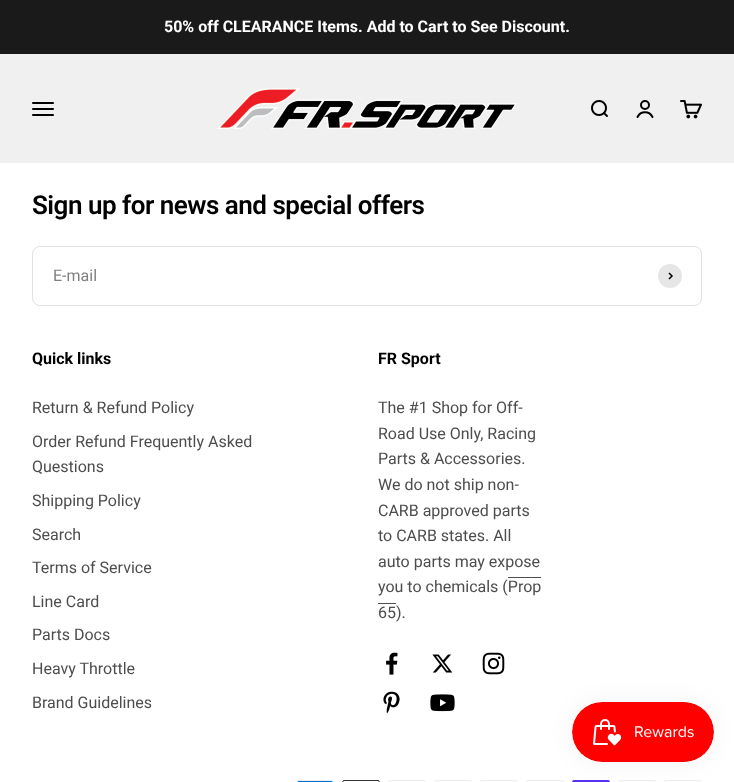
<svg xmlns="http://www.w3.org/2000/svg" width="734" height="782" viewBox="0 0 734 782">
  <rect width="100%" height="100%" fill="#fff"/>
  <path d="M0 0h734v54H0z" fill="#1a1a1a"/>
  <path d="M0 54h734v109H0z" fill="#f0f0f0"/>
  <image x="32" y="102" width="22" height="14" href="img/1.png"/>
  <image x="217" y="88" width="300" height="41" href="img/2.png"/>
  <image x="591" y="100" width="17" height="17" href="img/3.png"/>
  <circle cx="645" cy="105" r="4" fill="none" stroke="#000" stroke-width="2"/>
  <path d="M637.5 117C640.5 110.5 649.5 110.5 652.5 117" fill="none" stroke="#000" stroke-width="2" stroke-linecap="round"/>
  <image x="680" y="100" width="22" height="19" href="img/4.png"/>
  <rect x="32.5" y="246.5" width="669" height="59" rx="7.5" fill="none" stroke="#e0e0e0"/>
  <circle cx="670" cy="276" r="12" fill="#e6e6e6"/>
  <path d="M669 279L672 276L669 273" fill="none" stroke="#000" stroke-width="1.5"/>
  <path d="M508 577h33v1H508z" fill="#4d4d4d"/>
  <path d="M378 603h18v1H378z" fill="#4d4d4d"/>
  <image x="386" y="652" width="12" height="23" href="img/5.png"/>
  <image x="432" y="654" width="21" height="19" href="img/6.png"/>
  <image x="482" y="652" width="23" height="23" href="img/7.png"/>
  <image x="383" y="691" width="17" height="23" href="img/8.png"/>
  <image x="430" y="694" width="25" height="18" href="img/9.png"/>
  <image x="296" y="780" width="38" height="2" href="img/10.png"/>
  <image x="342" y="780" width="38" height="2" href="img/11.png"/>
  <image x="388" y="780" width="38" height="2" href="img/12.png"/>
  <image x="434" y="780" width="38" height="2" href="img/12.png"/>
  <image x="480" y="780" width="38" height="2" href="img/12.png"/>
  <image x="526" y="780" width="38" height="2" href="img/12.png"/>
  <image x="572" y="780" width="38" height="2" href="img/13.png"/>
  <image x="618" y="780" width="38" height="2" href="img/12.png"/>
  <image x="664" y="780" width="38" height="2" href="img/12.png"/>
  <rect x="572" y="702" width="142" height="60" rx="30" fill="#0000000d" filter="blur(12.5px)"/>
  <image x="572" y="702" width="142" height="60" href="img/14.png"/>
  <text x="164" y="32" font-family="Roboto" font-size="16" font-weight="bold" fill="#fff">50% off CLEARANCE Items. Add to Cart to See Discount.</text>
  <text x="32" y="214" font-family="Roboto" font-size="26" font-weight="600" letter-spacing="-0.5" fill="#000">Sign up for news and special offers</text>
  <text x="53" y="281" font-family="Roboto" font-size="16" fill="#808080">E-mail</text>
  <text x="32" y="364" font-family="Roboto" font-size="16" font-weight="bold" fill="#000">Quick links</text>
  <g font-family="Roboto" font-size="16" fill="#4d4d4d">
    <text x="32" y="413">Return &amp; Refund Policy</text>
    <text x="32" y="447">Order Refund Frequently Asked</text>
    <text x="32" y="472">Questions</text>
    <text x="32" y="506">Shipping Policy</text>
    <text x="32" y="540">Search</text>
    <text x="32" y="573">Terms of Service</text>
    <text x="32" y="607">Line Card</text>
    <text x="32" y="640">Parts Docs</text>
    <text x="32" y="674">Heavy Throttle</text>
    <text x="32" y="708">Brand Guidelines</text>
  </g>
  <text x="378" y="364" font-family="Roboto" font-size="16" font-weight="bold" fill="#000">FR Sport</text>
  <g font-family="Roboto" font-size="16" fill="#4d4d4d">
    <text x="378" y="413">The #1 Shop for Off-</text>
    <text x="378" y="439">Road Use Only, Racing</text>
    <text x="378" y="464">Parts &amp; Accessories.</text>
    <text x="378" y="490">We do not ship non-</text>
    <text x="378" y="516">CARB approved parts</text>
    <text x="378" y="541">to CARB states. All</text>
    <text x="378" y="567">auto parts may expose</text>
    <text x="378" y="592">you to chemicals (Prop</text>
    <text x="378" y="618">65).</text>
  </g>
</svg>
